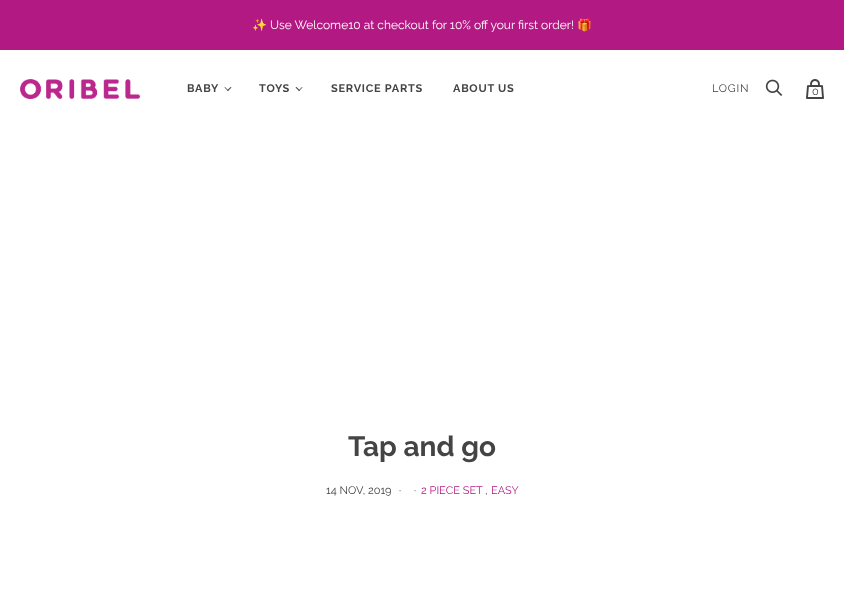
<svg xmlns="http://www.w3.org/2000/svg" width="844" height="591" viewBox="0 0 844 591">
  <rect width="100%" height="100%" fill="#fff"/>
  <path d="M0 0h844v50H0z" fill="#b31983"/>
  <image x="20" y="79" width="120" height="20" href="img/1.png"/>
  <path d="M227 90.5L230.5 87L231.5 87.5L228 91Z" fill="#444"/>
  <path d="M224.5 87.5L225 87L228.5 90.5L228 91Z" fill="#444"/>
  <path d="M298.5 90.5L302 87L302.5 87.5L299 91Z" fill="#444"/>
  <path d="M295.5 87.5L296.5 87L300 90.5L299 91Z" fill="#444"/>
  <image x="765" y="79" width="18" height="17" href="img/2.png"/>
  <image x="806" y="79" width="18" height="20" href="img/3.png"/>
  <text x="252" y="29" font-family="Noto Color Emoji" font-size="12" fill="#fff">✨</text>
  <text x="270" y="29" font-family="Raleway" font-size="12" font-weight="100" fill="#fff">Use Welcome10 at checkout for 10% off your first order!</text>
  <text x="577" y="29" font-family="Noto Color Emoji" font-size="12" fill="#fff">🎁</text>
  <g font-family="Raleway" font-size="11" font-weight="bold" letter-spacing="0.75" fill="#444">
    <text x="187" y="92">BABY</text>
    <text x="259" y="92">TOYS</text>
    <text x="331" y="92">SERVICE PARTS</text>
    <text x="453" y="92">ABOUT US</text>
  </g>
  <text x="712" y="92" font-family="Raleway" font-size="11" font-weight="100" letter-spacing="0.75" fill="#444">LOGIN</text>
  <text x="812" y="95" font-family="Raleway" font-size="11" font-weight="100" fill="#444">0</text>
  <text x="348" y="456" font-family="Raleway" font-size="28" font-weight="bold" fill="#444">Tap and go</text>
  <g font-family="Raleway" font-size="11" font-weight="100" fill="#444">
    <text x="326" y="494">14 NOV, 2019</text>
    <text x="399" y="494">·</text>
    <text x="414" y="494">·</text>
  </g>
  <text x="421" y="494" font-family="Raleway" font-size="11" font-weight="100" fill="#b31983">2 PIECE SET</text>
  <text x="485" y="494" font-family="Raleway" font-size="11" font-weight="100" fill="#444">,</text>
  <text x="491" y="494" font-family="Raleway" font-size="11" font-weight="100" fill="#b31983">EASY</text>
</svg>
